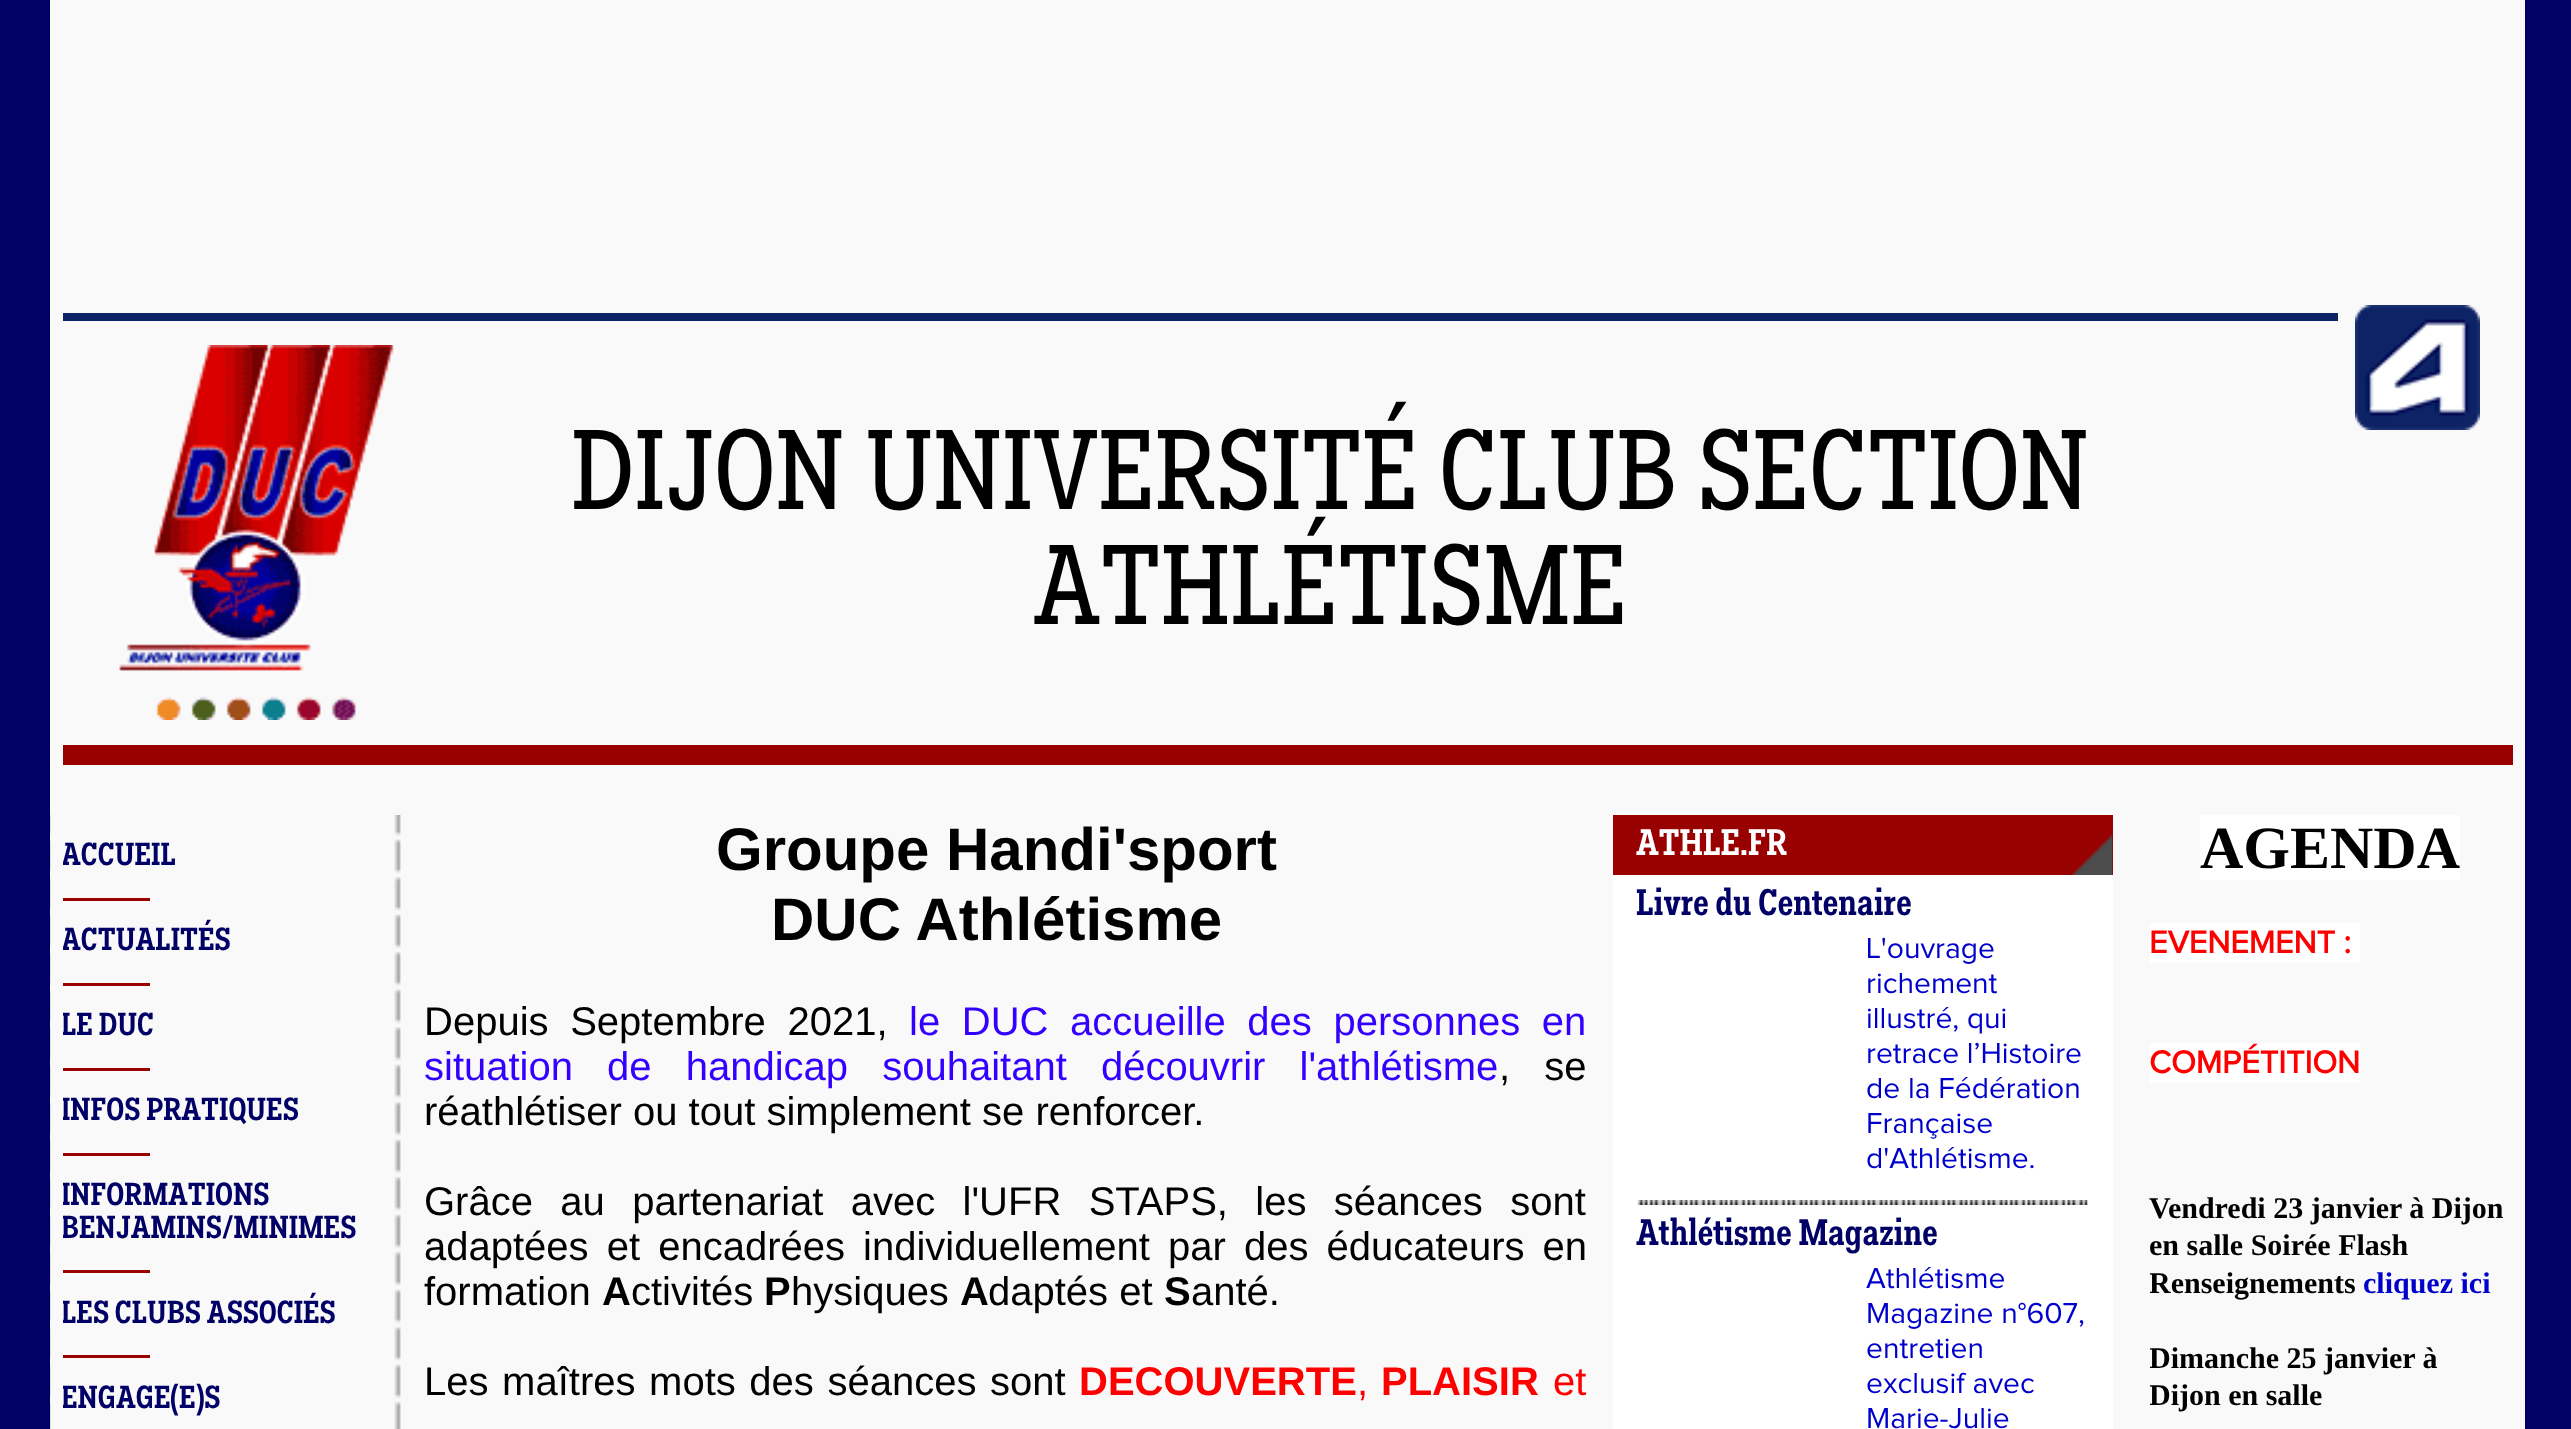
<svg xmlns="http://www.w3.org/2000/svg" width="2571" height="1429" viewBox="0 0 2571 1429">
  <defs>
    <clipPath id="clip1"><path d="M63 815h325v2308H63z"/></clipPath>
    <clipPath id="clip2"><path d="M2150 815h363v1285H2150z"/></clipPath>
  </defs>
  <rect width="100%" height="100%" fill="#006"/>
  <path d="M50 0h2475v1429H50z" fill="#f9f9f9"/>
  <path d="M63 313h2275v8H63z" fill="#0d2366"/>
  <image x="2355" y="305" width="125" height="125" href="img/1.png"/>
  <image x="119" y="345" width="275" height="375" href="img/2.png"/>
  <path d="M63 745h2450v20H63z" fill="#900"/>
  <image x="50" y="815" width="351" height="614" href="img/3.png"/>
  <path d="M63 898h87v3H63z" fill="#900"/>
  <path d="M63 983h87v3H63z" fill="#900"/>
  <path d="M63 1068h87v3H63z" fill="#900"/>
  <path d="M63 1153h87v3H63z" fill="#900"/>
  <path d="M63 1270h87v3H63z" fill="#900"/>
  <path d="M63 1355h87v3H63z" fill="#900"/>
  <path d="M1613 875h500v554H1613z" fill="#fff"/>
  <path d="M1613 815h500v60H1613z" fill="#900"/>
  <image x="2072" y="835" width="41" height="40" href="img/4.png"/>
  <image x="1637" y="1200" width="451" height="5" href="img/5.png"/>
  <path d="M2200 815h260v65H2200z" fill="#fff"/>
  <path d="M2150 923h210v40H2150z" fill="#fff"/>
  <path d="M2150 1043h210v40H2150z" fill="#fff"/>
  <g font-family="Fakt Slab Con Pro" font-size="115" fill="#000">
    <text x="571" y="509">DIJON UNIVERSITÉ CLUB SECTION</text>
    <text x="1033" y="624">ATHLÉTISME</text>
  </g>
  <g clip-path="url(#clip1)">
    <g font-family="Fakt Slab Con Pro" font-size="32.5" font-weight="600" fill="#006">
      <text x="61" y="865">ACCUEIL</text>
      <text x="61" y="950">ACTUALITÉS</text>
      <text x="61" y="1035">LE DUC</text>
      <text x="61" y="1120">INFOS PRATIQUES</text>
      <text x="61" y="1205">INFORMATIONS</text>
      <text x="61" y="1238">BENJAMINS/MINIMES</text>
      <text x="61" y="1323">LES CLUBS ASSOCIÉS</text>
      <text x="61" y="1408">ENGAGE(E)S</text>
    </g>
  </g>
  <g font-family="Liberation Sans" font-size="60" font-weight="bold" fill="#000">
    <text x="716" y="870">Groupe Handi'sport</text>
    <text x="771" y="940">DUC Athlétisme</text>
  </g>
  <text x="424" y="1035" word-spacing="10.5" font-family="Liberation Sans" font-size="40" fill="#000">Depuis Septembre 2021,</text>
  <g font-family="Liberation Sans" font-size="40" fill="#30f">
    <text x="909" y="1035" word-spacing="10.5">le DUC accueille des personnes en</text>
    <text x="424" y="1080" word-spacing="23">situation de handicap souhaitant découvrir l'athlétisme</text>
  </g>
  <g font-family="Liberation Sans" font-size="40" fill="#000">
    <text x="1499" y="1080" word-spacing="23">, se</text>
    <text x="424" y="1125">réathlétiser ou tout simplement se renforcer.</text>
    <text x="424" y="1215" word-spacing="16.25">Grâce au partenariat avec l'UFR STAPS, les séances sont</text>
    <text x="424" y="1260" word-spacing="7">adaptées et encadrées individuellement par des éducateurs en</text>
    <text x="424" y="1305">formation</text>
  </g>
  <text x="602" y="1305" font-family="Liberation Sans" font-size="40" font-weight="bold" fill="#000">A</text>
  <text x="631" y="1305" font-family="Liberation Sans" font-size="40" fill="#000">ctivités</text>
  <text x="764" y="1305" font-family="Liberation Sans" font-size="40" font-weight="bold" fill="#000">P</text>
  <text x="791" y="1305" font-family="Liberation Sans" font-size="40" fill="#000">hysiques</text>
  <text x="960" y="1305" font-family="Liberation Sans" font-size="40" font-weight="bold" fill="#000">A</text>
  <text x="988" y="1305" font-family="Liberation Sans" font-size="40" fill="#000">daptés et</text>
  <text x="1164" y="1305" font-family="Liberation Sans" font-size="40" font-weight="bold" fill="#000">S</text>
  <g font-family="Liberation Sans" font-size="40" fill="#000">
    <text x="1191" y="1305">anté.</text>
    <text x="424" y="1395" word-spacing="2.5">Les maîtres mots des séances sont</text>
  </g>
  <text x="1079" y="1395" font-family="Liberation Sans" font-size="40" font-weight="bold" fill="#f00">DECOUVERTE</text>
  <text x="1357" y="1395" font-family="Liberation Sans" font-size="40" fill="#f00">,</text>
  <text x="1381" y="1395" font-family="Liberation Sans" font-size="40" font-weight="bold" fill="#f00">PLAISIR</text>
  <text x="1553" y="1395" font-family="Liberation Sans" font-size="40" fill="#f00">et</text>
  <text x="1636" y="855" font-family="Fakt Slab Con Pro" font-size="37.5" font-weight="600" fill="#fff">ATHLE.FR</text>
  <text x="1636" y="915" font-family="Fakt Slab Con Pro" font-size="37.5" font-weight="600" fill="#006">Livre du Centenaire</text>
  <g font-family="Proxima Nova" font-size="30" fill="#00c">
    <text x="1866" y="958">L'ouvrage</text>
    <text x="1866" y="993">richement</text>
    <text x="1866" y="1028">illustré, qui</text>
    <text x="1866" y="1063">retrace l’Histoire</text>
    <text x="1866" y="1098">de la Fédération</text>
    <text x="1866" y="1133">Française</text>
    <text x="1866" y="1168">d'Athlétisme.</text>
  </g>
  <text x="1636" y="1245" font-family="Fakt Slab Con Pro" font-size="37.5" font-weight="600" fill="#006">Athlétisme Magazine</text>
  <g font-family="Proxima Nova" font-size="30" fill="#00c">
    <text x="1866" y="1288">Athlétisme</text>
    <text x="1866" y="1323">Magazine n°607,</text>
    <text x="1866" y="1358">entretien</text>
    <text x="1866" y="1393">exclusif avec</text>
    <text x="1866" y="1428">Marie-Julie</text>
  </g>
  <text x="2200" y="868" font-family="Liberation Serif" font-size="60" font-weight="bold" fill="#000">AGENDA</text>
  <g font-family="Proxima Nova" font-size="32.5" font-weight="bold" fill="#f00">
    <text x="2149" y="953">EVENEMENT :</text>
    <text x="2149" y="1073">COMPÉTITION</text>
  </g>
  <text x="2149" y="1218" font-family="Liberation Serif" font-size="30" font-weight="bold" fill="#000">Vendredi 23 janvier à Dijon</text>
  <g clip-path="url(#clip2)">
    <g font-family="Liberation Serif" font-size="30" font-weight="bold" fill="#000">
      <text x="2149" y="1255">en salle Soirée Flash</text>
      <text x="2149" y="1293">Renseignements</text>
    </g>
  </g>
  <text x="2363" y="1293" font-family="Liberation Serif" font-size="30" font-weight="bold" fill="#00c">cliquez ici</text>
  <g clip-path="url(#clip2)">
    <g font-family="Liberation Serif" font-size="30" font-weight="bold" fill="#000">
      <text x="2149" y="1368">Dimanche 25 janvier à</text>
      <text x="2149" y="1405">Dijon en salle</text>
    </g>
  </g>
</svg>
